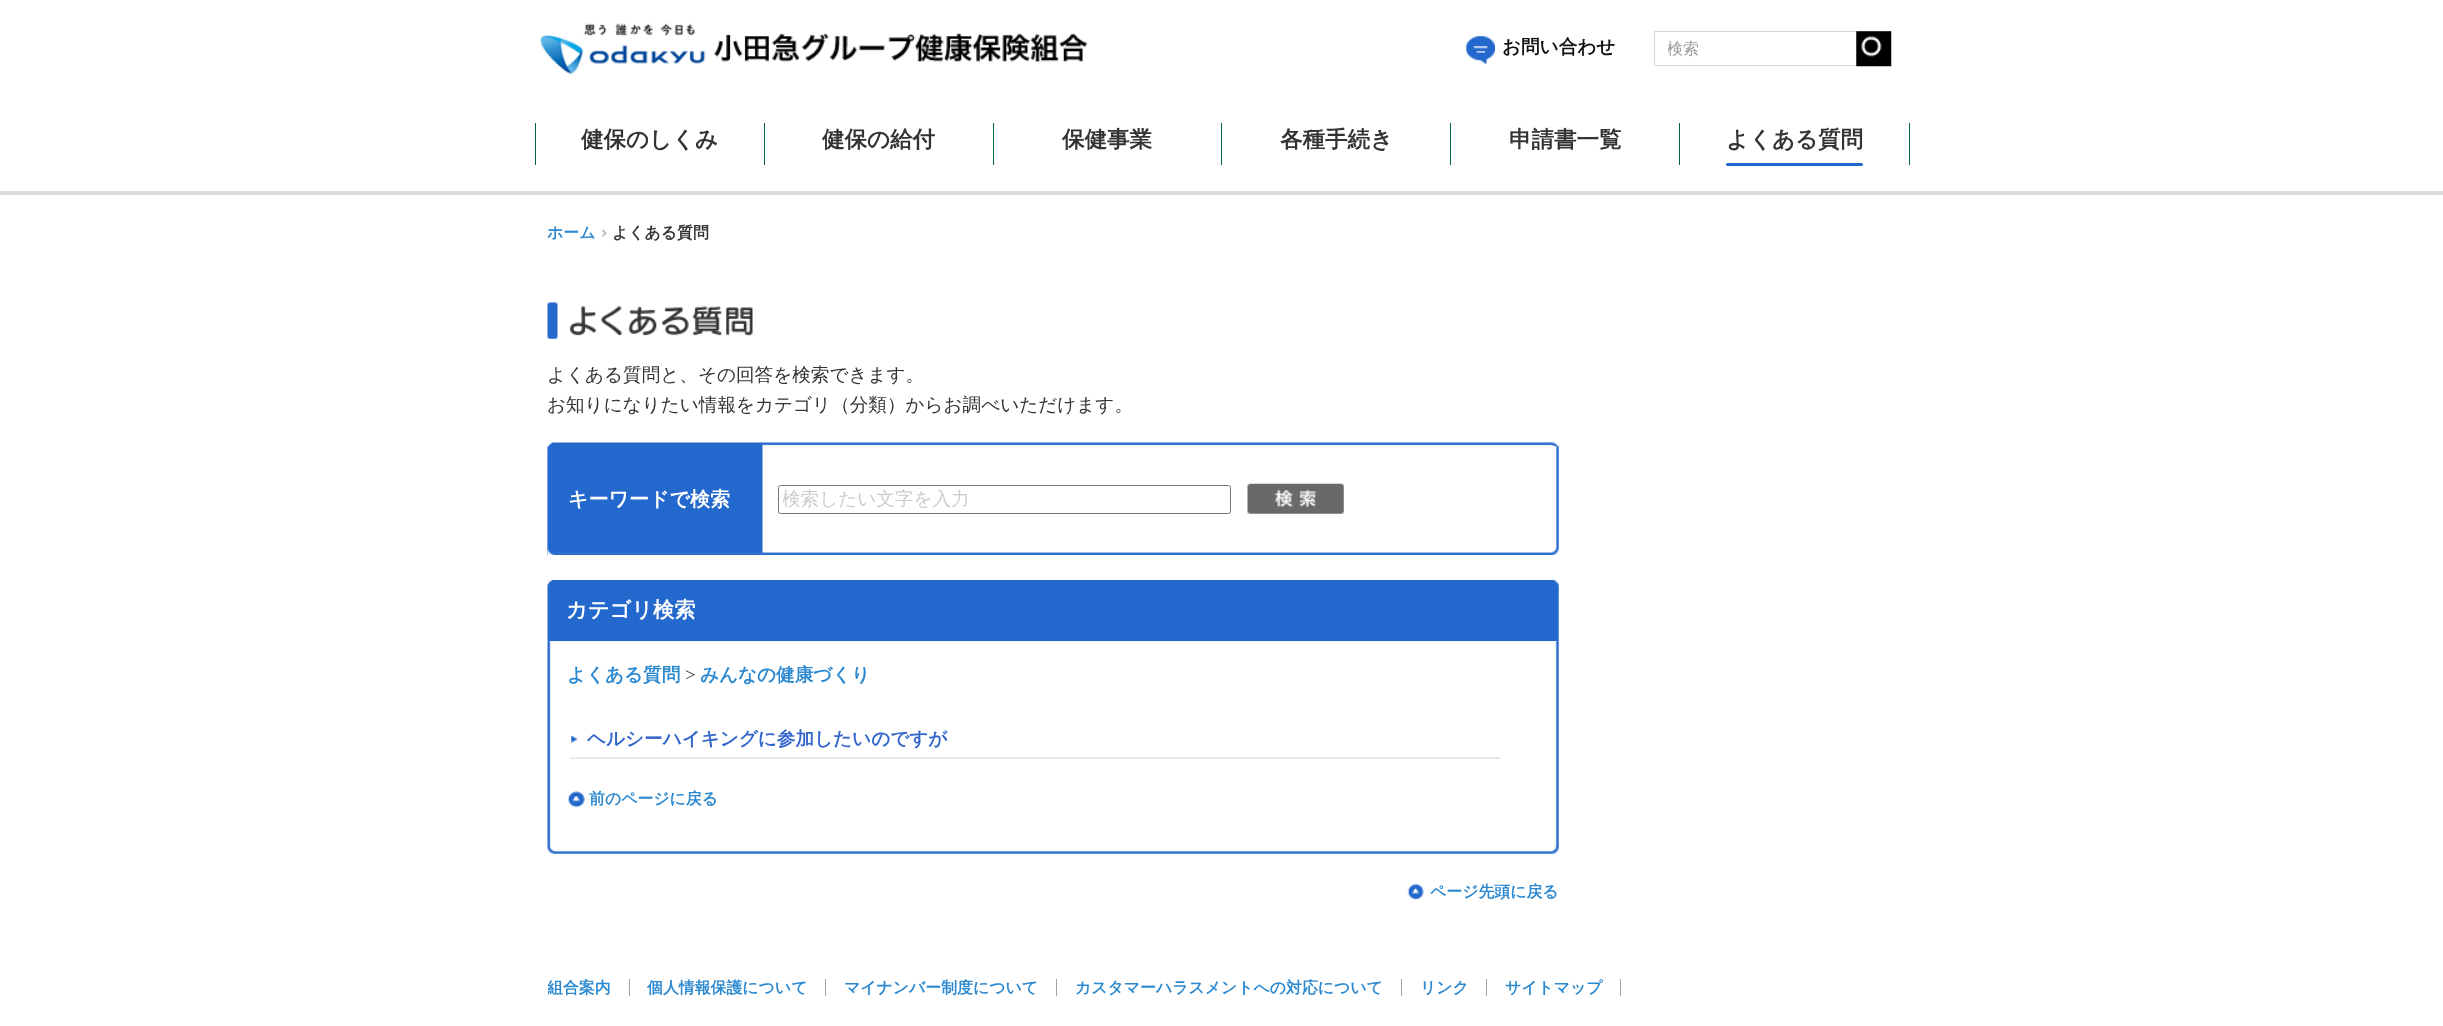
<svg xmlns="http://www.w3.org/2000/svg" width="2443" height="1026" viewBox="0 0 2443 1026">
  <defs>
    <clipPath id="clip1"><path d="M1668 38h216v22H1668z"/></clipPath>
    <clipPath id="clip2"><path d="M783 488h443v23H783z"/></clipPath>
    <clipPath id="clip3"><path d="M548 926h1350v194H548z"/></clipPath>
  </defs>
  <rect width="100%" height="100%" fill="#fff"/>
  <image x="540" y="23" width="548" height="51" href="img/1.png"/>
  <image x="1466" y="36" width="29" height="28" href="img/2.png"/>
  <path d="M1654.5 31.5h236v34H1654.5z" fill="none" stroke="#d6d6d6"/>
  <image x="1856" y="31" width="36" height="36" href="img/3.png"/>
  <path d="M535 123h1v42H535z" fill="#006847"/>
  <path d="M764 123h1v42H764z" fill="#006847"/>
  <path d="M993 123h1v42H993z" fill="#006847"/>
  <path d="M1221 123h1v42H1221z" fill="#006847"/>
  <path d="M1450 123h1v42H1450z" fill="#006847"/>
  <path d="M1909 123h1v42H1909z" fill="#006847"/>
  <path d="M1679 123h1v42H1679z" fill="#006847"/>
  <rect x="1726" y="163" width="137" height="3" rx="1.5" fill="#2368cd"/>
  <path d="M0 191h2443v4H0z" fill="#ddd"/>
  <image x="602" y="230" width="5" height="7" href="img/4.png"/>
  <image x="547" y="302" width="206" height="37" href="img/5.png"/>
  <image x="547" y="442" width="1012" height="113" href="img/6.png"/>
  <image x="547" y="446" width="1012" height="109" href="img/7.png"/>
  <rect x="778.5" y="485.5" width="452" height="28" rx="2" fill="none" stroke="#767676"/>
  <image x="1247" y="483" width="97" height="31" href="img/8.png"/>
  <image x="547" y="580" width="1012" height="62" href="img/9.png"/>
  <image x="547" y="641" width="1012" height="213" href="img/10.png"/>
  <image x="571" y="736" width="7" height="7" href="img/11.png"/>
  <path d="M571 758H1500" fill="none" stroke="#aaa" stroke-width="1.2" stroke-dasharray="1.25 1.25"/>
  <image x="567" y="791" width="18" height="17" href="img/12.png"/>
  <image x="1407" y="883" width="17" height="17" href="img/13.png"/>
  <path d="M629 979h1v17H629z" fill="#a2a2a2"/>
  <path d="M825 979h1v17H825z" fill="#a2a2a2"/>
  <path d="M1056 979h1v17H1056z" fill="#a2a2a2"/>
  <path d="M1401 979h1v17H1401z" fill="#a2a2a2"/>
  <path d="M1486 979h1v17H1486z" fill="#a2a2a2"/>
  <path d="M1620 979h1v17H1620z" fill="#a2a2a2"/>
  <text x="1502" y="53" font-family="WenQuanYi Zen Hei" font-size="18.6" font-weight="bold" fill="#111">お問い合わせ</text>
  <g clip-path="url(#clip1)">
    <text x="1667" y="54" font-family="WenQuanYi Zen Hei" font-size="16" font-weight="500" fill="#999">検索</text>
  </g>
  <g font-family="WenQuanYi Zen Hei" font-size="22.5" font-weight="bold" fill="#333">
    <text x="581" y="147">健保のしくみ</text>
    <text x="822" y="147">健保の給付</text>
    <text x="1062" y="147">保健事業</text>
    <text x="1280" y="147">各種手続き</text>
    <text x="1509" y="147">申請書一覧</text>
    <text x="1726" y="147">よくある質問</text>
  </g>
  <text x="547" y="238" font-family="WenQuanYi Zen Hei" font-size="15.9" font-weight="bold" fill="#2c89d0">ホーム</text>
  <text x="612" y="238" font-family="WenQuanYi Zen Hei" font-size="15.9" font-weight="bold" fill="#333">よくある質問</text>
  <g font-family="WenQuanYi Zen Hei" font-size="18.6" font-weight="500" fill="#333">
    <text x="547" y="381">よくある質問と、その回答を検索できます。</text>
    <text x="547" y="411">お知りになりたい情報をカテゴリ（分類）からお調べいただけます。</text>
  </g>
  <text x="568" y="506" font-family="WenQuanYi Zen Hei" font-size="20" font-weight="bold" fill="#fff">キーワードで検索</text>
  <g clip-path="url(#clip2)">
    <text x="782" y="505" font-family="WenQuanYi Zen Hei" font-size="18.6" font-weight="500" fill="#ccc">検索したい文字を入力</text>
  </g>
  <text x="566" y="617" font-family="WenQuanYi Zen Hei" font-size="21.25" font-weight="bold" fill="#fff">カテゴリ検索</text>
  <text x="567" y="681" font-family="WenQuanYi Zen Hei" font-size="18.6" font-weight="bold" fill="#2c89d0">よくある質問</text>
  <text x="685" y="681" font-family="Liberation Serif" font-size="18.6" fill="#333">&gt;</text>
  <text x="700" y="681" font-family="WenQuanYi Zen Hei" font-size="18.6" font-weight="bold" fill="#2c89d0">みんなの健康づくり</text>
  <text x="587" y="745" font-family="WenQuanYi Zen Hei" font-size="18.6" font-weight="bold" fill="#36c">ヘルシーハイキングに参加したいのですが</text>
  <g font-family="WenQuanYi Zen Hei" font-size="15.9" font-weight="bold" fill="#2c89d0">
    <text x="589" y="804">前のページに戻る</text>
    <text x="1430" y="897">ページ先頭に戻る</text>
  </g>
  <g clip-path="url(#clip3)">
    <text x="547" y="993" font-family="WenQuanYi Zen Hei" font-size="15.9" font-weight="bold" fill="#2c89d0">組合案内</text>
  </g>
  <g font-family="WenQuanYi Zen Hei" font-size="15.9" font-weight="bold" fill="#2c89d0">
    <text x="647" y="993">個人情報保護について</text>
    <text x="844" y="993">マイナンバー制度について</text>
    <text x="1075" y="993">カスタマーハラスメントへの対応について</text>
    <text x="1420" y="993">リンク</text>
    <text x="1505" y="993">サイトマップ</text>
  </g>
</svg>
